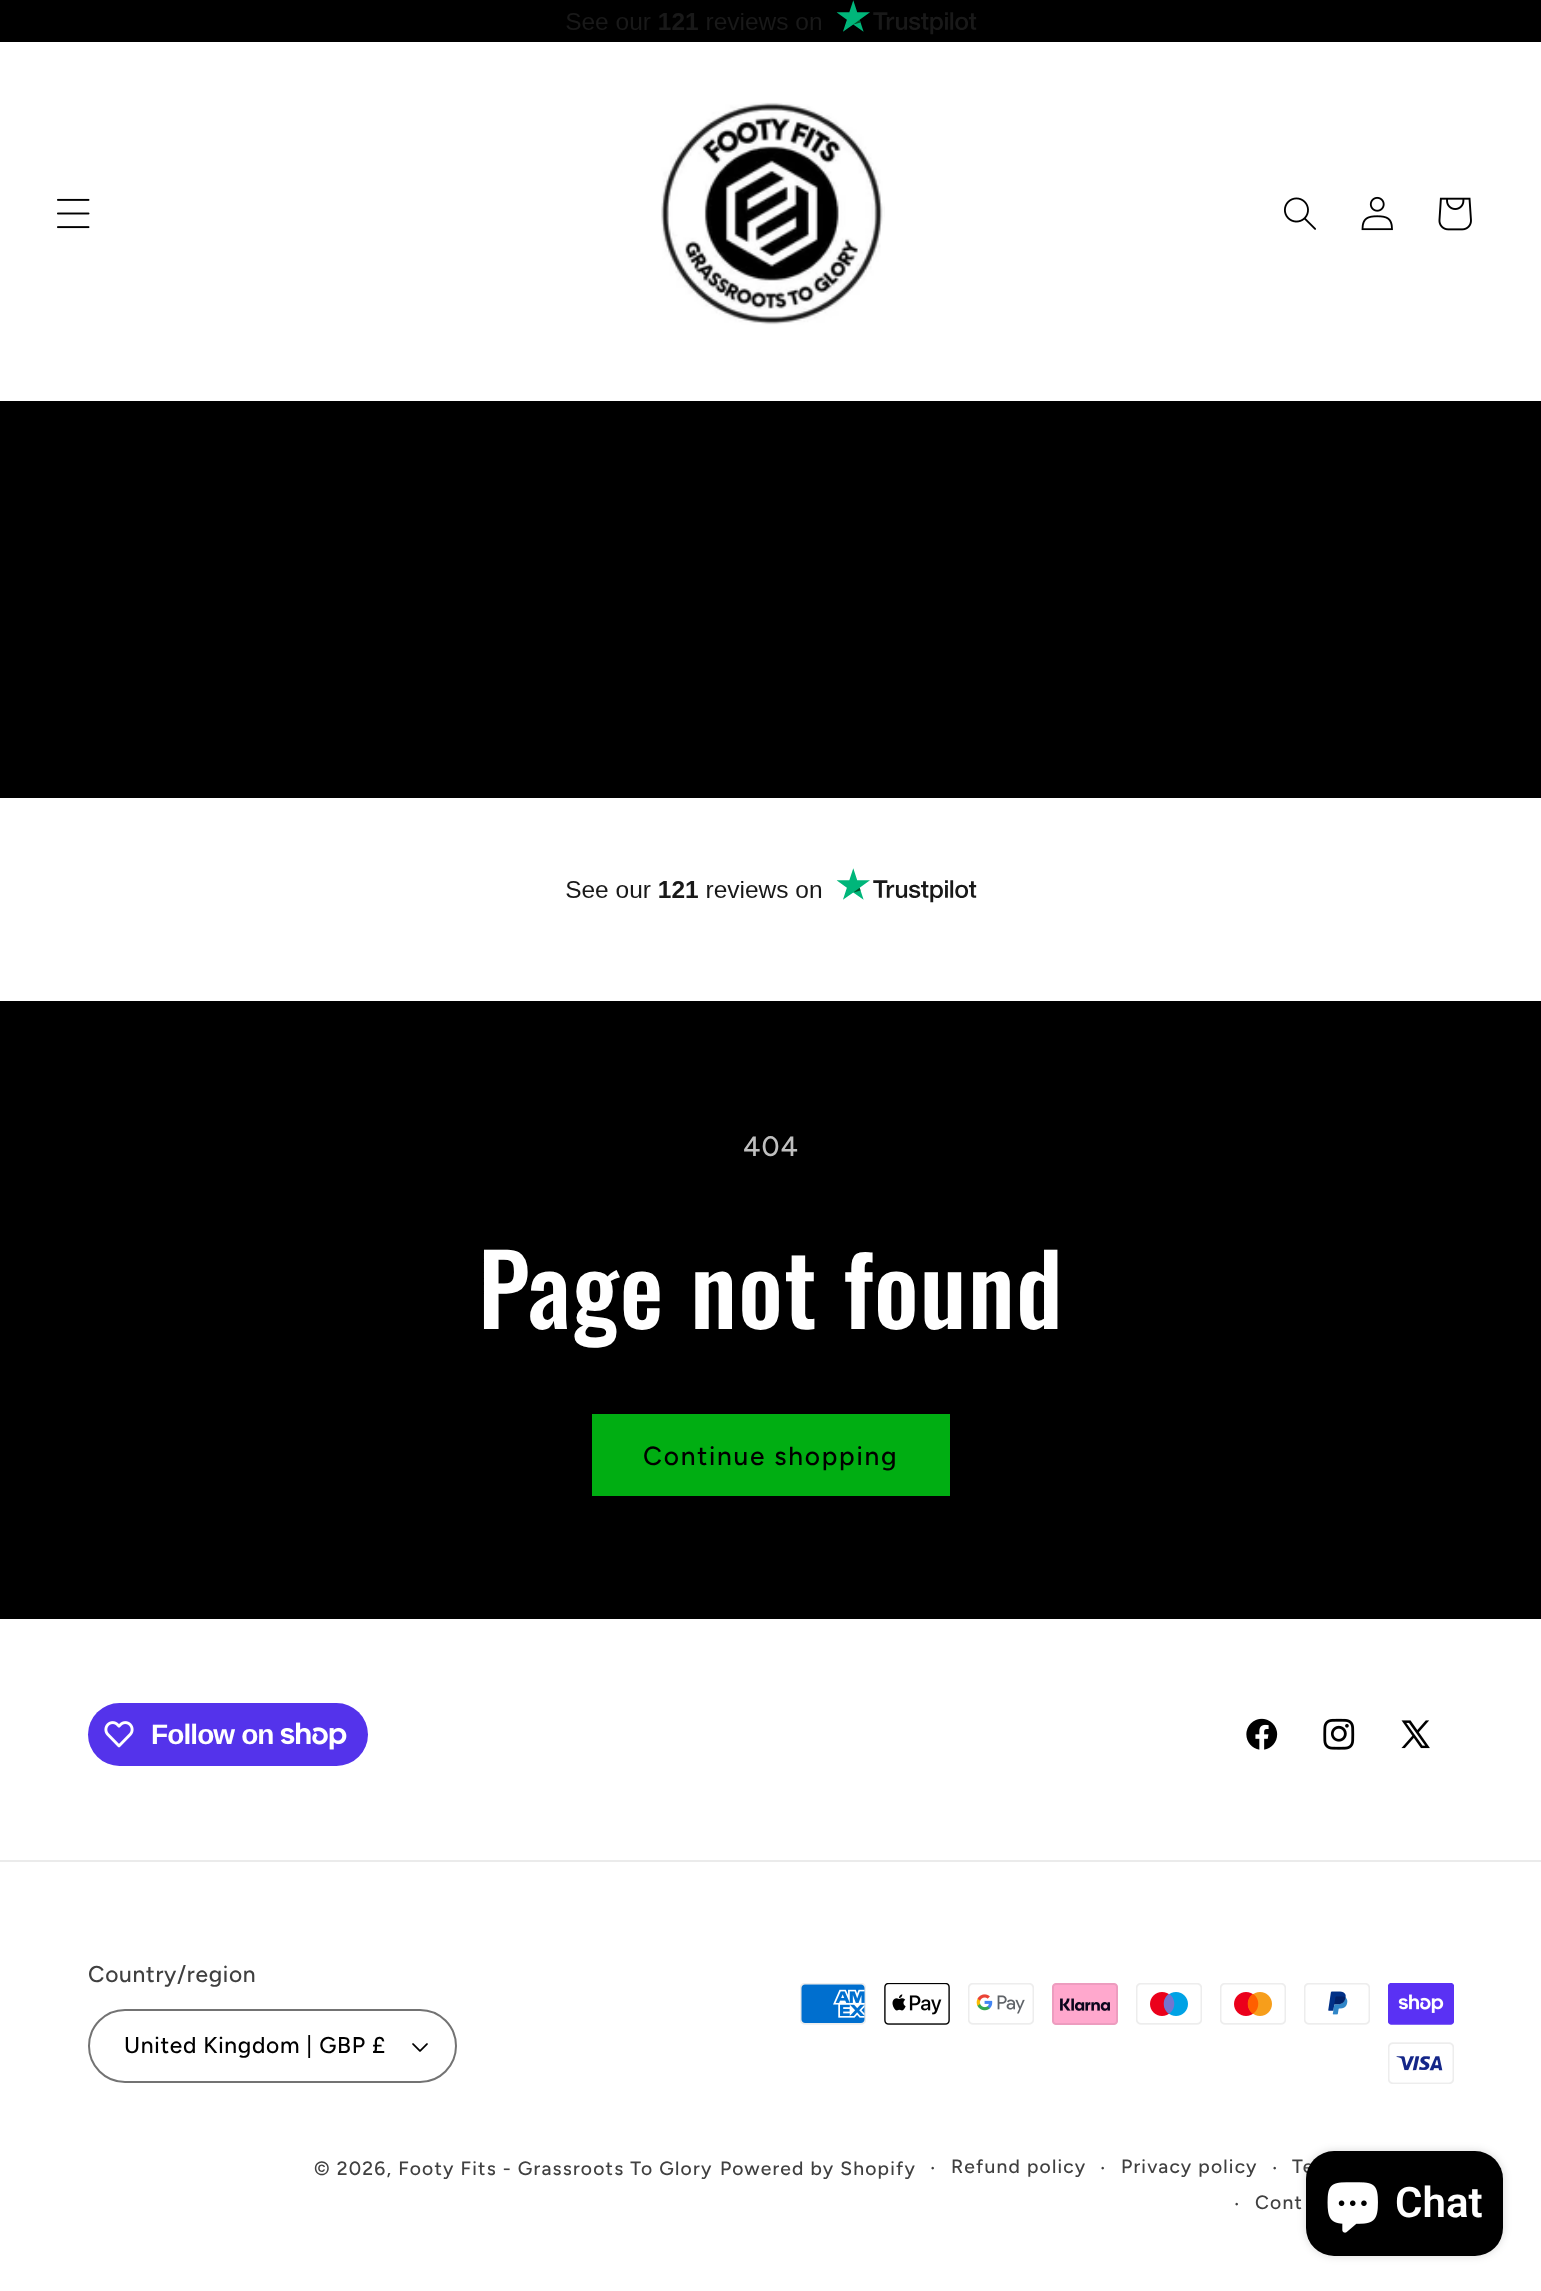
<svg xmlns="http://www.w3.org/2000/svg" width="1541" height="2291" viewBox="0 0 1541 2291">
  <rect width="100%" height="100%" fill="#000"/>
  <image x="566" y="0" width="411" height="35" href="img/1.png"/>
  <path d="M0 42h1541v359H0z" fill="#fff"/>
  <image x="57" y="198" width="33" height="31" href="img/2.png"/>
  <image x="661" y="102" width="224" height="223" href="img/3.png"/>
  <image x="1284" y="197" width="32" height="33" href="img/4.png"/>
  <image x="1361" y="196" width="32" height="35" href="img/5.png"/>
  <image x="1438" y="197" width="34" height="34" href="img/6.png"/>
  <path d="M0 798h1541v203H0z" fill="#fff"/>
  <image x="566" y="868" width="411" height="35" href="img/7.png"/>
  <path d="M592 1414h358v82H592z" fill="#00ae12"/>
  <path d="M0 1619h1541v672H0z" fill="#fff"/>
  <rect x="88" y="1703" width="280" height="63" rx="31.5" fill="#5433eb"/>
  <image x="104" y="1721" width="30" height="27" href="img/8.png"/>
  <image x="280" y="1722" width="67" height="28" href="img/9.png"/>
  <image x="1246" y="1718" width="32" height="32" href="img/10.png"/>
  <image x="1323" y="1718" width="32" height="32" href="img/11.png"/>
  <image x="1401" y="1720" width="29" height="29" href="img/12.png"/>
  <path d="M0 1860h1541v2H0z" fill="#ebebeb"/>
  <image x="412" y="2043" width="16" height="9" href="img/13.png"/>
  <rect x="89" y="2010" width="367" height="72" rx="36" fill="none" stroke="#737373" stroke-width="2"/>
  <image x="800" y="1983" width="66" height="42" href="img/14.png"/>
  <image x="884" y="1983" width="66" height="42" href="img/15.png"/>
  <image x="968" y="1983" width="66" height="42" href="img/16.png"/>
  <image x="1052" y="1983" width="66" height="42" href="img/17.png"/>
  <image x="1136" y="1983" width="66" height="42" href="img/18.png"/>
  <image x="1220" y="1983" width="66" height="42" href="img/19.png"/>
  <image x="1304" y="1983" width="66" height="42" href="img/20.png"/>
  <image x="1388" y="1983" width="66" height="42" href="img/21.png"/>
  <image x="1388" y="2042" width="66" height="42" href="img/22.png"/>
  <rect x="1306" y="2151" width="197" height="105" rx="28" fill="#00000026" filter="blur(4.5px)"/>
  <text x="743" y="1156" font-family="Figtree" font-size="28" font-weight="500" letter-spacing="1" fill="#bfbfbf">404</text>
  <text x="478" y="1329" font-family="Oswald" font-size="98" font-weight="500" letter-spacing="1.5" fill="#fff">Page not found</text>
  <text x="643" y="1465" font-family="Figtree" font-size="26.25" font-weight="500" letter-spacing="1.75" fill="#000">Continue shopping</text>
  <text x="151" y="1744" font-family="Liberation Sans" font-size="28" font-weight="bold" letter-spacing="-0.9" fill="#fff">Follow on</text>
  <text x="88" y="1982" font-family="Figtree" font-size="22.75" font-weight="500" letter-spacing="0.7" fill="#404040">Country/region</text>
  <text x="124" y="2053" font-family="Figtree" font-size="22.75" font-weight="500" letter-spacing="0.7" fill="#000">United Kingdom | GBP £</text>
  <g font-family="Figtree" font-size="19.25" font-weight="500" letter-spacing="1.2" fill="#404040">
    <text x="314" y="2175">© 2026, Footy Fits - Grassroots To Glory</text>
    <text x="720" y="2175">Powered by Shopify</text>
  </g>
  <text x="930" y="2175" font-family="Figtree" font-size="21" font-weight="500" letter-spacing="1.2" fill="#404040">·</text>
  <text x="951" y="2173" font-family="Figtree" font-size="19.25" font-weight="500" letter-spacing="1.2" fill="#404040">Refund policy</text>
  <text x="1100" y="2175" font-family="Figtree" font-size="21" font-weight="500" letter-spacing="1.2" fill="#404040">·</text>
  <text x="1121" y="2173" font-family="Figtree" font-size="19.25" font-weight="500" letter-spacing="1.2" fill="#404040">Privacy policy</text>
  <text x="1272" y="2175" font-family="Figtree" font-size="21" font-weight="500" letter-spacing="1.2" fill="#404040">·</text>
  <text x="1292" y="2173" font-family="Figtree" font-size="19.25" font-weight="500" letter-spacing="1.2" fill="#404040">Te</text>
  <text x="1234" y="2211" font-family="Figtree" font-size="21" font-weight="500" letter-spacing="1.2" fill="#404040">·</text>
  <text x="1255" y="2209" font-family="Figtree" font-size="19.25" font-weight="500" letter-spacing="1.2" fill="#404040">Cont</text>
  <rect x="1306" y="2151" width="197" height="105" rx="28" fill="#000"/>
  <image x="1327" y="2182" width="51" height="51" href="img/23.png"/>
  <text x="1395" y="2217" font-family="Roboto" font-size="42" font-weight="600" fill="#fff">Chat</text>
</svg>
